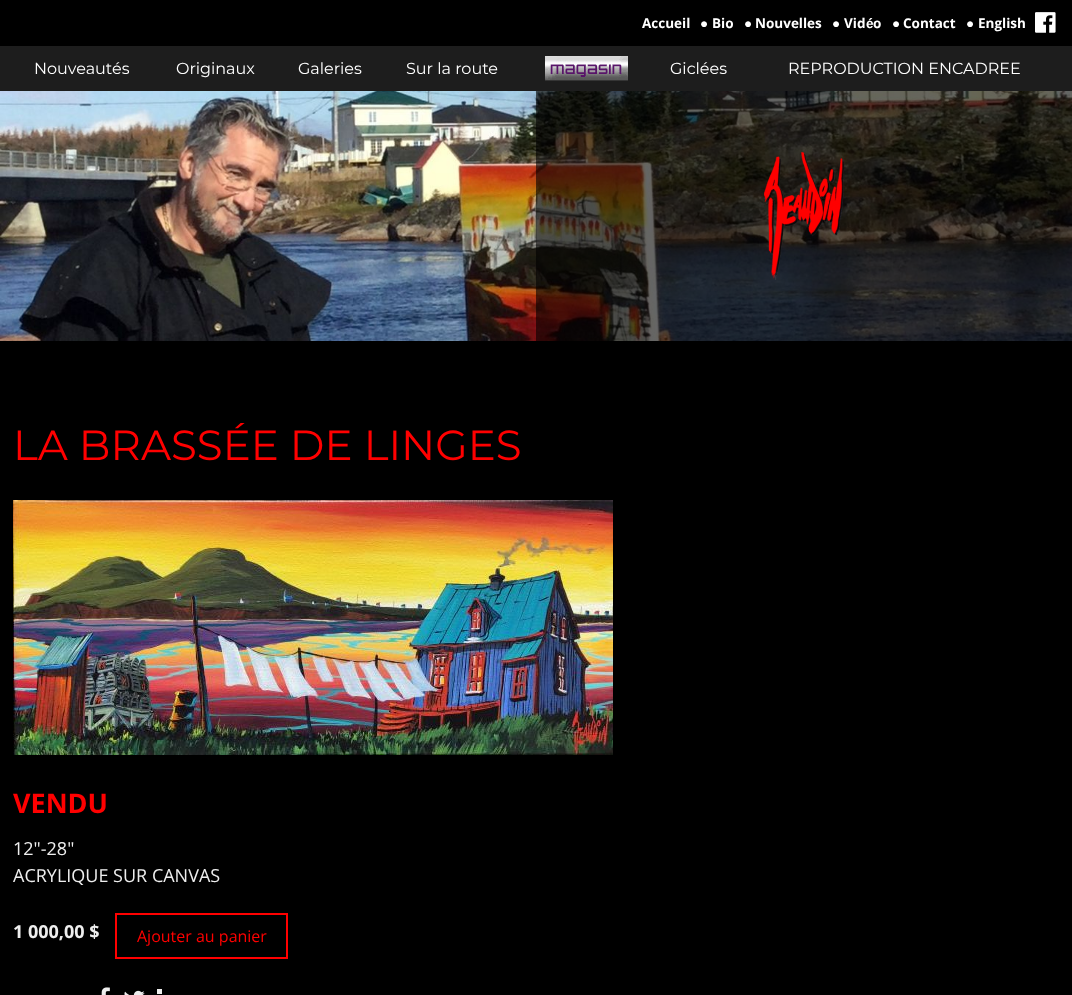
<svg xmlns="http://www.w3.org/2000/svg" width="1072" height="995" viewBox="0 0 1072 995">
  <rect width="100%" height="100%" fill="#000"/>
  <image x="1035" y="12" width="21" height="21" href="img/1.png"/>
  <path d="M0 46h1072v45H0z" fill="#1d1d1d"/>
  <image x="545" y="56" width="83" height="25" href="img/2.png"/>
  <image x="0" y="91" width="1072" height="250" href="img/3.png"/>
  <path d="M536 91h536v250H536z" fill="#00000099"/>
  <image x="764" y="152" width="80" height="128" href="img/4.png"/>
  <image x="13" y="500" width="600" height="255" href="img/5.png"/>
  <path d="M116 914h171v44H116z" fill="none" stroke="#f00" stroke-width="2"/>
  <image x="101" y="987" width="9" height="8" href="img/6.png"/>
  <image x="124" y="990" width="21" height="5" href="img/7.png"/>
  <path d="M157 989h5v5H157z" fill="#eee"/>
  <text x="642" y="28" font-family="Open Sans" font-size="13.5" font-weight="bold" fill="#fff">Accueil</text>
  <text x="700" y="28" font-family="Liberation Sans" font-size="13.5" font-weight="bold" fill="#fff">●</text>
  <text x="712" y="28" font-family="Open Sans" font-size="13.5" font-weight="bold" fill="#fff">Bio</text>
  <text x="744" y="28" font-family="Liberation Sans" font-size="13.5" font-weight="bold" fill="#fff">●</text>
  <text x="755" y="28" font-family="Open Sans" font-size="13.5" font-weight="bold" fill="#fff">Nouvelles</text>
  <text x="832" y="28" font-family="Liberation Sans" font-size="13.5" font-weight="bold" fill="#fff">●</text>
  <text x="844" y="28" font-family="Open Sans" font-size="13.5" font-weight="bold" fill="#fff">Vid</text>
  <text x="866" y="28" font-family="Liberation Sans" font-size="13.5" font-weight="bold" fill="#fff">é</text>
  <text x="873" y="28" font-family="Open Sans" font-size="13.5" font-weight="bold" fill="#fff">o</text>
  <text x="892" y="28" font-family="Liberation Sans" font-size="13.5" font-weight="bold" fill="#fff">●</text>
  <text x="903" y="28" font-family="Open Sans" font-size="13.5" font-weight="bold" fill="#fff">Contact</text>
  <text x="966" y="28" font-family="Liberation Sans" font-size="13.5" font-weight="bold" fill="#fff">●</text>
  <text x="978" y="28" font-family="Open Sans" font-size="13.5" font-weight="bold" fill="#fff">English</text>
  <g font-family="Montserrat" font-size="16" fill="#fff">
    <text x="34" y="74">Nouveautés</text>
    <text x="176" y="74">Originaux</text>
    <text x="298" y="74">Galeries</text>
    <text x="406" y="74">Sur la route</text>
    <text x="670" y="74">Giclées</text>
    <text x="788" y="74">REPRODUCTION ENCADREE</text>
  </g>
  <text x="13" y="460" font-family="Montserrat" font-size="42" fill="#f00">LA BRASSÉE DE LINGES</text>
  <text x="13" y="813" font-family="Open Sans" font-size="27" font-weight="bold" fill="#f00">VENDU</text>
  <g font-family="Open Sans" font-size="18" fill="#eee">
    <text x="13" y="855">12"-28"</text>
    <text x="13" y="882">ACRYLIQUE SUR CANVAS</text>
  </g>
  <text x="13" y="938" font-family="Open Sans" font-size="18" font-weight="bold" fill="#eee">1 000,00 $</text>
  <text x="137" y="942" font-family="Open Sans" font-size="16" fill="#f00">Ajouter au panier</text>
</svg>
